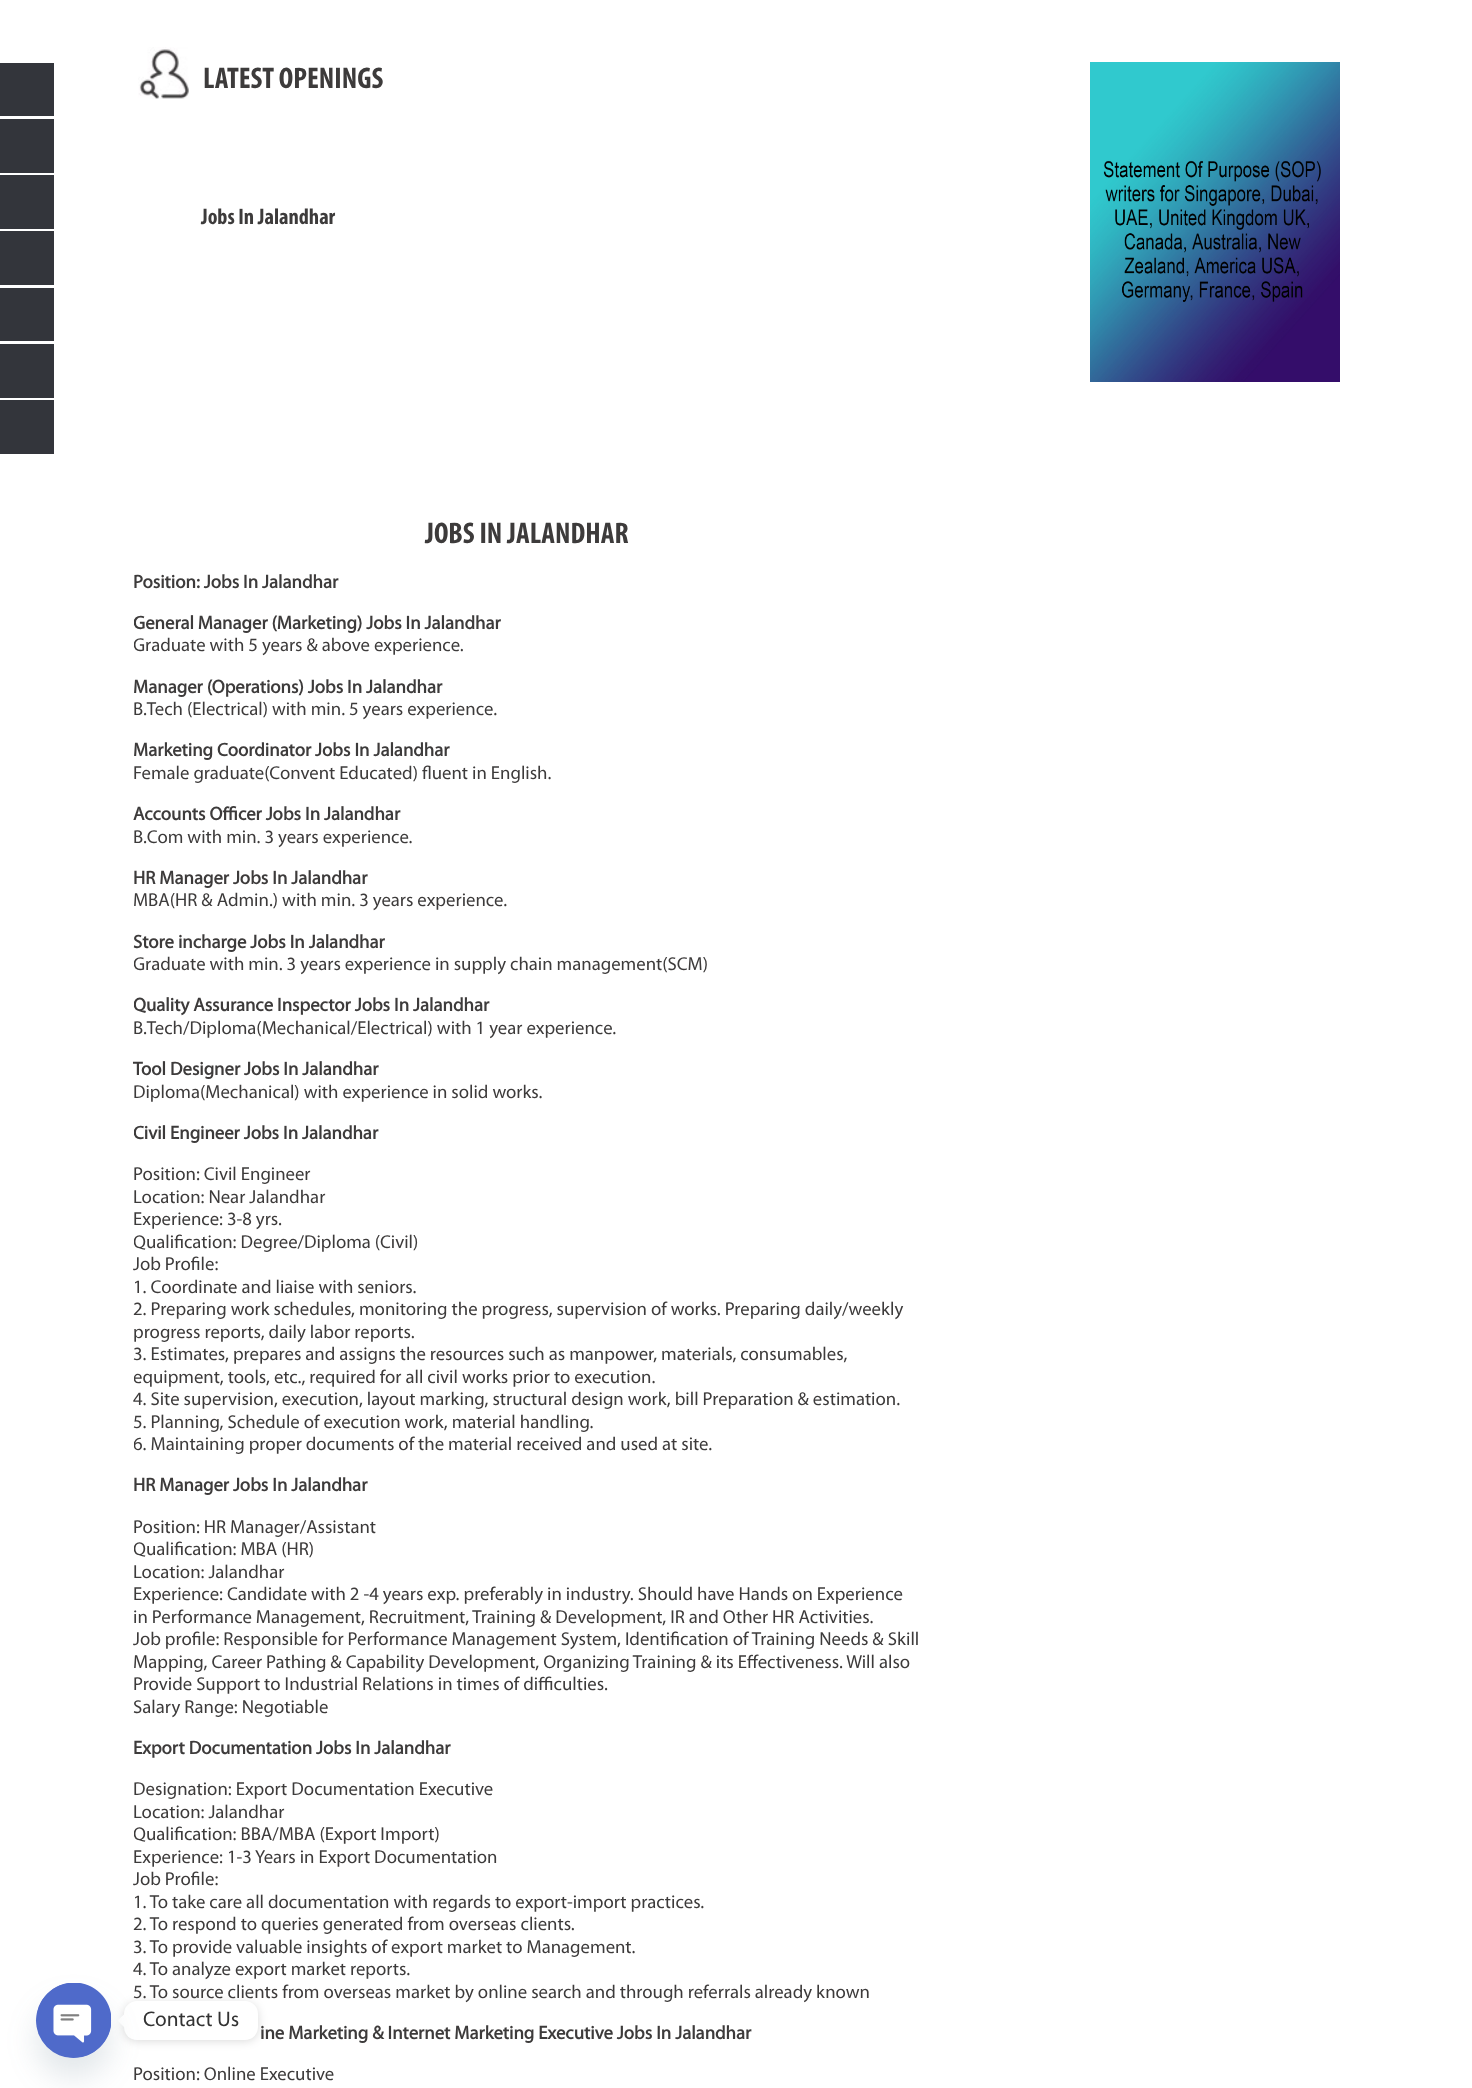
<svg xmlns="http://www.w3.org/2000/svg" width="1472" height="2088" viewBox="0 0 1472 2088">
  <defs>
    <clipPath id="clip1"><path d="M134 44h1206v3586H134z"/></clipPath>
  </defs>
  <rect width="100%" height="100%" fill="#fff"/>
  <path d="M0 63h54v53H0z" fill="#33353b"/>
  <path d="M0 119h54v54H0z" fill="#33353b"/>
  <path d="M0 175h54v54H0z" fill="#33353b"/>
  <path d="M0 231h54v54H0z" fill="#33353b"/>
  <path d="M0 288h54v53H0z" fill="#33353b"/>
  <path d="M0 344h54v54H0z" fill="#33353b"/>
  <path d="M0 400h54v54H0z" fill="#33353b"/>
  <image x="138" y="47" width="51" height="52" href="img/1.png"/>
  <image x="1090" y="62" width="250" height="320" href="img/2.png"/>
  <rect x="124" y="2003" width="134" height="38" rx="13" fill="#00000026" filter="blur(5px)"/>
  <path d="M124 2014.5V2027L117.5 2020.5Z" fill="#fff"/>
  <text x="203" y="88" font-family="Myriad" font-size="30" font-weight="bold" fill="#3d3b3b">LATEST OPENINGS</text>
  <text x="201" y="224" font-family="Myriad" font-size="22.5" font-weight="bold" fill="#3d3b3b">Jobs In Jalandhar</text>
  <text x="425" y="543" font-family="Myriad" font-size="30" font-weight="bold" fill="#3d3b3b">JOBS IN JALANDHAR</text>
  <text x="133" y="588" font-family="'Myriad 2'" font-size="18.75" font-weight="bold" fill="#3d3b3b">Position: Jobs In Jalandhar</text>
  <g clip-path="url(#clip1)">
    <text x="133" y="629" font-family="'Myriad 2'" font-size="18.75" font-weight="bold" fill="#3d3b3b">General Manager (Marketing) Jobs In Jalandhar</text>
    <text x="133" y="651" font-family="Myriad" font-size="18.75" fill="#3d3b3b">Graduate with 5 years &amp; above experience.</text>
  </g>
  <text x="133" y="693" font-family="'Myriad 2'" font-size="18.75" font-weight="bold" fill="#3d3b3b">Manager (Operations) Jobs In Jalandhar</text>
  <text x="133" y="715" font-family="Myriad" font-size="18.75" fill="#3d3b3b">B.Tech (Electrical) with min. 5 years experience.</text>
  <text x="133" y="756" font-family="'Myriad 2'" font-size="18.75" font-weight="bold" fill="#3d3b3b">Marketing Coordinator Jobs In Jalandhar</text>
  <text x="133" y="779" font-family="Myriad" font-size="18.75" fill="#3d3b3b">Female graduate(Convent Educated) fluent in English.</text>
  <text x="133" y="820" font-family="'Myriad 2'" font-size="18.75" font-weight="bold" fill="#3d3b3b">Accounts Officer Jobs In Jalandhar</text>
  <text x="133" y="843" font-family="Myriad" font-size="18.75" fill="#3d3b3b">B.Com with min. 3 years experience.</text>
  <text x="133" y="884" font-family="'Myriad 2'" font-size="18.75" font-weight="bold" fill="#3d3b3b">HR Manager Jobs In Jalandhar</text>
  <text x="133" y="906" font-family="Myriad" font-size="18.75" fill="#3d3b3b">MBA(HR &amp; Admin.) with min. 3 years experience.</text>
  <text x="133" y="948" font-family="'Myriad 2'" font-size="18.75" font-weight="bold" fill="#3d3b3b">Store incharge Jobs In Jalandhar</text>
  <g clip-path="url(#clip1)">
    <text x="133" y="970" font-family="Myriad" font-size="18.75" fill="#3d3b3b">Graduate with min. 3 years experience in supply chain management(SCM)</text>
    <text x="133" y="1011" font-family="'Myriad 2'" font-size="18.75" font-weight="bold" fill="#3d3b3b">Quality Assurance Inspector Jobs In Jalandhar</text>
  </g>
  <text x="133" y="1034" font-family="Myriad" font-size="18.75" fill="#3d3b3b">B.Tech/Diploma(Mechanical/Electrical) with 1 year experience.</text>
  <text x="133" y="1075" font-family="'Myriad 2'" font-size="18.75" font-weight="bold" fill="#3d3b3b">Tool Designer Jobs In Jalandhar</text>
  <text x="133" y="1098" font-family="Myriad" font-size="18.75" fill="#3d3b3b">Diploma(Mechanical) with experience in solid works.</text>
  <g clip-path="url(#clip1)">
    <text x="133" y="1139" font-family="'Myriad 2'" font-size="18.75" font-weight="bold" fill="#3d3b3b">Civil Engineer Jobs In Jalandhar</text>
  </g>
  <g font-family="Myriad" font-size="18.75" fill="#3d3b3b">
    <text x="133" y="1180">Position: Civil Engineer</text>
    <text x="133" y="1203">Location: Near Jalandhar</text>
    <text x="133" y="1225">Experience: 3-8 yrs.</text>
  </g>
  <g clip-path="url(#clip1)">
    <text x="133" y="1248" font-family="Myriad" font-size="18.75" fill="#3d3b3b">Qualification: Degree/Diploma (Civil)</text>
  </g>
  <g font-family="Myriad" font-size="18.75" fill="#3d3b3b">
    <text x="133" y="1270">Job Profile:</text>
    <text x="133" y="1293">1. Coordinate and liaise with seniors.</text>
    <text x="133" y="1315">2. Preparing work schedules, monitoring the progress, supervision of works. Preparing daily/weekly</text>
    <text x="133" y="1338">progress reports, daily labor reports.</text>
    <text x="133" y="1360">3. Estimates, prepares and assigns the resources such as manpower, materials, consumables,</text>
  </g>
  <g clip-path="url(#clip1)">
    <text x="133" y="1383" font-family="Myriad" font-size="18.75" fill="#3d3b3b">equipment, tools, etc., required for all civil works prior to execution.</text>
  </g>
  <g font-family="Myriad" font-size="18.75" fill="#3d3b3b">
    <text x="133" y="1405">4. Site supervision, execution, layout marking, structural design work, bill Preparation &amp; estimation.</text>
    <text x="133" y="1428">5. Planning, Schedule of execution work, material handling.</text>
  </g>
  <g clip-path="url(#clip1)">
    <text x="133" y="1450" font-family="Myriad" font-size="18.75" fill="#3d3b3b">6. Maintaining proper documents of the material received and used at site.</text>
  </g>
  <text x="133" y="1491" font-family="'Myriad 2'" font-size="18.75" font-weight="bold" fill="#3d3b3b">HR Manager Jobs In Jalandhar</text>
  <text x="133" y="1533" font-family="Myriad" font-size="18.75" fill="#3d3b3b">Position: HR Manager/Assistant</text>
  <g clip-path="url(#clip1)">
    <text x="133" y="1555" font-family="Myriad" font-size="18.75" fill="#3d3b3b">Qualification: MBA (HR)</text>
  </g>
  <g font-family="Myriad" font-size="18.75" fill="#3d3b3b">
    <text x="133" y="1578">Location: Jalandhar</text>
    <text x="133" y="1600">Experience: Candidate with 2 -4 years exp. preferably in industry. Should have Hands on Experience</text>
    <text x="133" y="1623">in Performance Management, Recruitment, Training &amp; Development, IR and Other HR Activities.</text>
    <text x="133" y="1645">Job profile: Responsible for Performance Management System, Identification of Training Needs &amp; Skill</text>
    <text x="133" y="1668">Mapping, Career Pathing &amp; Capability Development, Organizing Training &amp; its Effectiveness. Will also</text>
    <text x="133" y="1690">Provide Support to Industrial Relations in times of difficulties.</text>
    <text x="133" y="1713">Salary Range: Negotiable</text>
  </g>
  <text x="133" y="1754" font-family="'Myriad 2'" font-size="18.75" font-weight="bold" fill="#3d3b3b">Export Documentation Jobs In Jalandhar</text>
  <g font-family="Myriad" font-size="18.75" fill="#3d3b3b">
    <text x="133" y="1795">Designation: Export Documentation Executive</text>
    <text x="133" y="1818">Location: Jalandhar</text>
  </g>
  <g clip-path="url(#clip1)">
    <text x="133" y="1840" font-family="Myriad" font-size="18.75" fill="#3d3b3b">Qualification: BBA/MBA (Export Import)</text>
  </g>
  <g font-family="Myriad" font-size="18.75" fill="#3d3b3b">
    <text x="133" y="1863">Experience: 1-3 Years in Export Documentation</text>
    <text x="133" y="1885">Job Profile:</text>
    <text x="133" y="1908">1. To take care all documentation with regards to export-import practices.</text>
    <text x="133" y="1930">2. To respond to queries generated from overseas clients.</text>
    <text x="133" y="1953">3. To provide valuable insights of export market to Management.</text>
    <text x="133" y="1975">4. To analyze export market reports.</text>
    <text x="133" y="1998">5. To source clients from overseas market by online search and through referrals already known</text>
  </g>
  <text x="260" y="2039" font-family="'Myriad 2'" font-size="18.75" font-weight="bold" fill="#3d3b3b">ine Marketing &amp; Internet Marketing Executive Jobs In Jalandhar</text>
  <text x="133" y="2080" font-family="Myriad" font-size="18.75" fill="#3d3b3b">Position: Online Executive</text>
  <rect x="124" y="2001" width="134" height="39" rx="13" fill="#fff"/>
  <rect x="36" y="2003" width="75" height="75" rx="37.5" fill="#49687e29" filter="blur(15px)"/>
  <circle cx="73.5" cy="2020.5" r="37.5" fill="#4f6aca"/>
  <image x="36" y="1983" width="75" height="75" href="img/3.png"/>
  <text x="143" y="2026" font-family="Myriad" font-size="21.25" fill="#333">Contact Us</text>
</svg>
